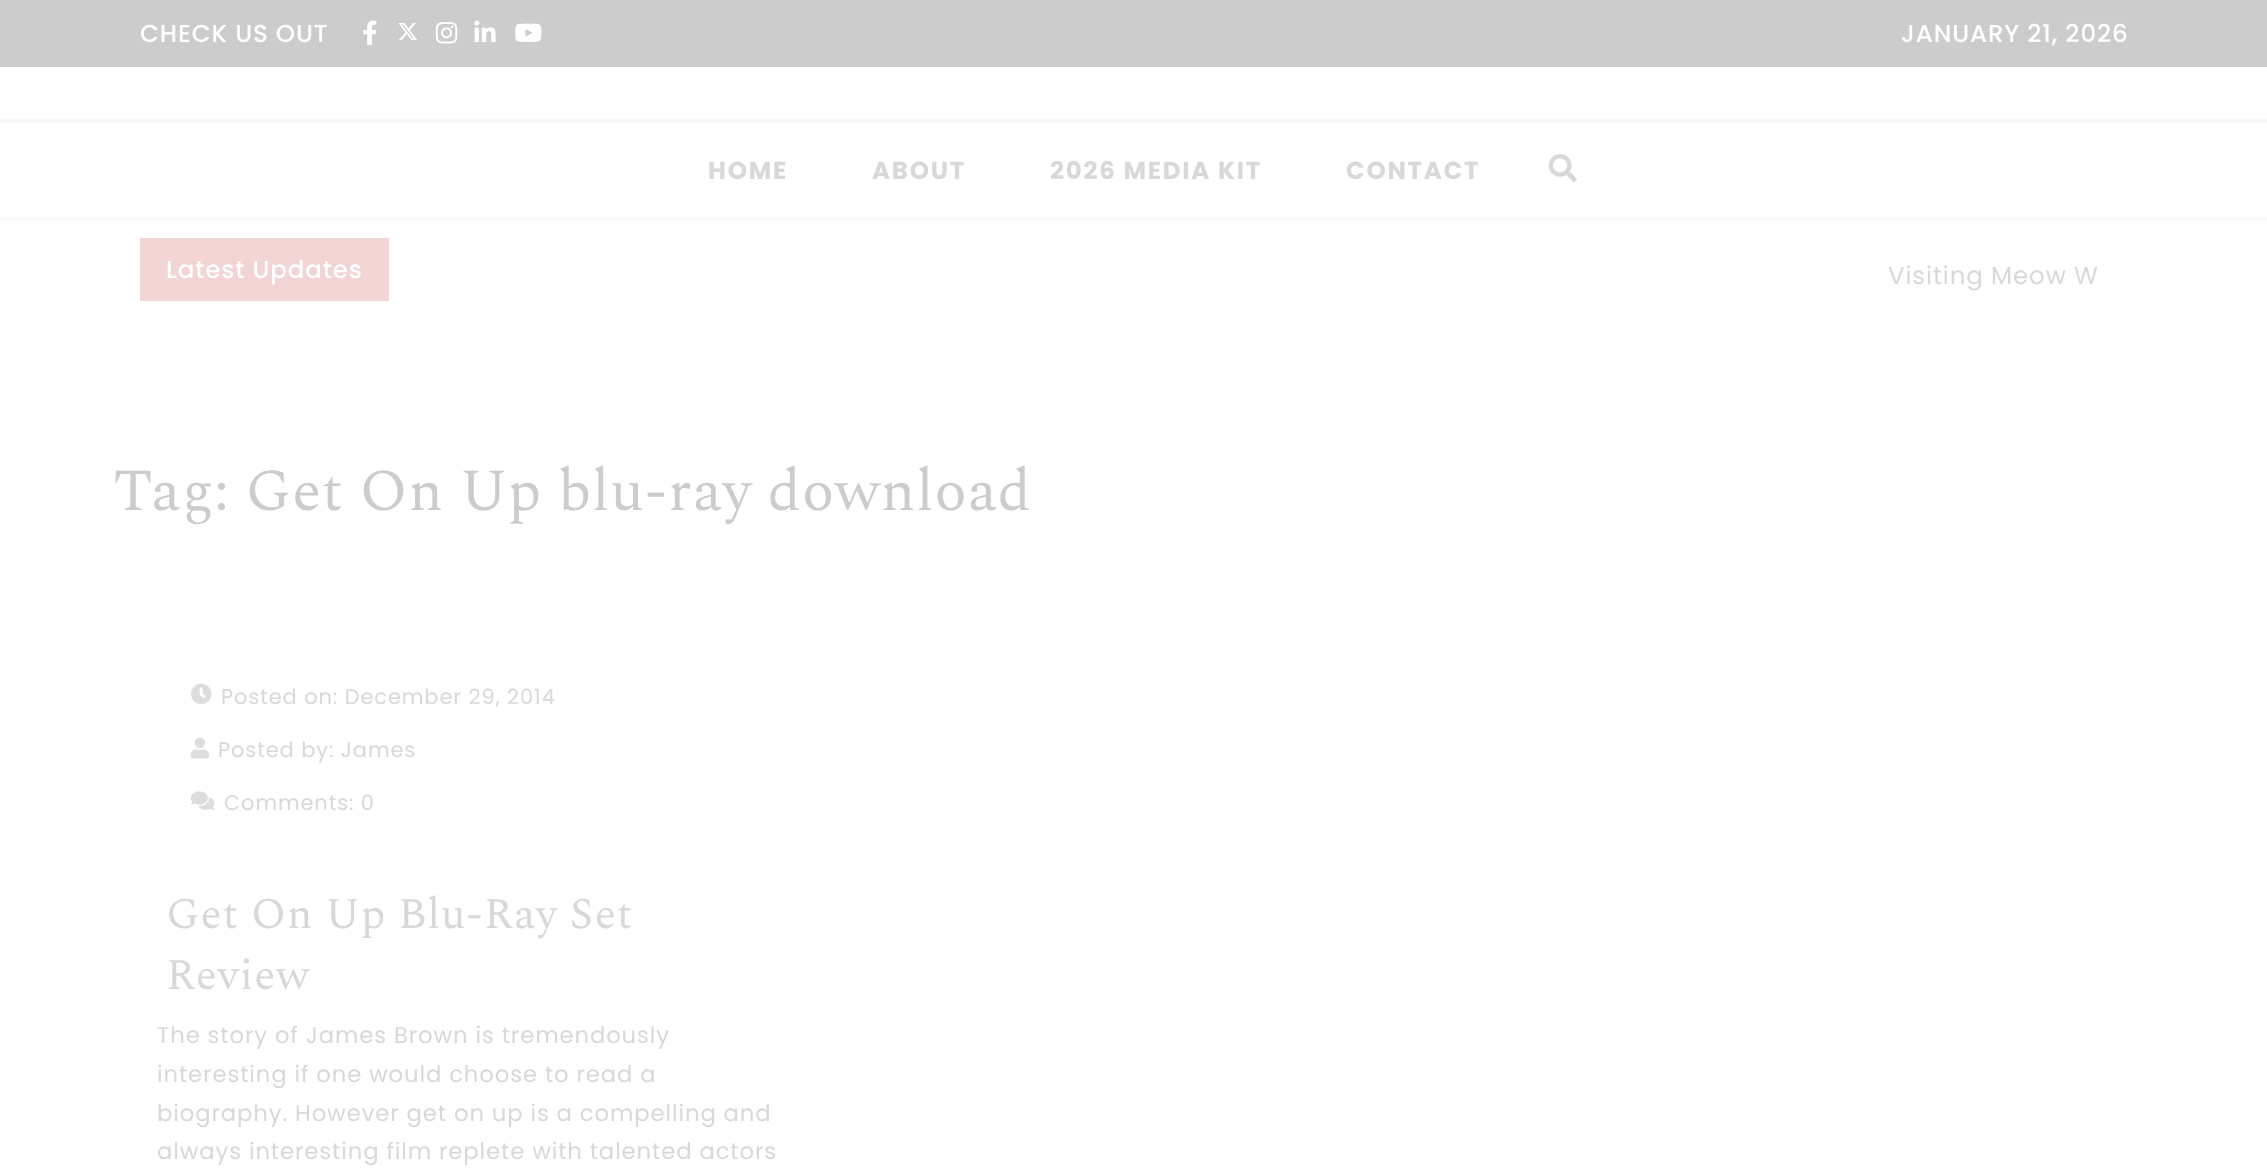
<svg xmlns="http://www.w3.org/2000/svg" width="2267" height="1172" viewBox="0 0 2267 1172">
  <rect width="100%" height="100%" fill="#fff"/>
  <path d="M0 0h2267v67H0z" fill="#ccc"/>
  <image x="363" y="20" width="14" height="26" href="img/1.png"/>
  <image x="398" y="23" width="20" height="17" href="img/2.png"/>
  <image x="435" y="22" width="23" height="22" href="img/3.png"/>
  <image x="474" y="20" width="22" height="22" href="img/4.png"/>
  <image x="515" y="23" width="27" height="19" href="img/5.png"/>
  <path d="M0 119h2267v4H0z" fill="#f9f9f9"/>
  <path d="M0 217h2267v4H0z" fill="#f9f9f9"/>
  <image x="1548" y="154" width="29" height="28" href="img/6.png"/>
  <path d="M140 238h249v63H140z" fill="#f2d4d4"/>
  <image x="191" y="683" width="21" height="21" href="img/7.png"/>
  <image x="190" y="737" width="20" height="22" href="img/8.png"/>
  <image x="190" y="791" width="25" height="19" href="img/9.png"/>
  <g font-family="Poppins" font-size="24.5" font-weight="500" letter-spacing="0.88" fill="#fff">
    <text x="140" y="42">CHECK US OUT</text>
    <text x="1901" y="42">JANUARY 21, 2026</text>
  </g>
  <g font-family="Poppins" font-size="24.5" font-weight="bold" letter-spacing="1.75" fill="#d8d8d8">
    <text x="708" y="179">HOME</text>
    <text x="872" y="179">ABOUT</text>
    <text x="1050" y="179">2026 MEDIA KIT</text>
    <text x="1346" y="179">CONTACT</text>
  </g>
  <text x="166" y="278" font-family="Poppins" font-size="24.5" font-weight="500" letter-spacing="0.88" fill="#fff">Latest Updates</text>
  <text x="1888" y="284" font-family="Poppins" font-size="24.5" letter-spacing="0.88" fill="#d8d8d8">Visiting Meow W</text>
  <text x="113" y="510" font-family="Spectral" font-size="59.5" letter-spacing="0.88" fill="#ccc">Tag: Get On Up blu-ray download</text>
  <g font-family="Poppins" font-size="21" letter-spacing="0.88" fill="#d8d8d8">
    <text x="221" y="704">Posted on: December 29, 2014</text>
    <text x="218" y="757">Posted by: James</text>
    <text x="224" y="810">Comments: 0</text>
  </g>
  <g font-family="Spectral" font-size="43.75" letter-spacing="0.88" fill="#d8d8d8">
    <text x="166" y="928">Get On Up Blu-Ray Set</text>
    <text x="166" y="989">Review</text>
  </g>
  <g font-family="Poppins" font-size="22.75" letter-spacing="0.88" fill="#d8d8d8">
    <text x="157" y="1043">The story of James Brown is tremendously</text>
    <text x="157" y="1082">interesting if one would choose to read a</text>
    <text x="157" y="1121">biography. However get on up is a compelling and</text>
    <text x="157" y="1159">always interesting film replete with talented actors</text>
  </g>
</svg>
